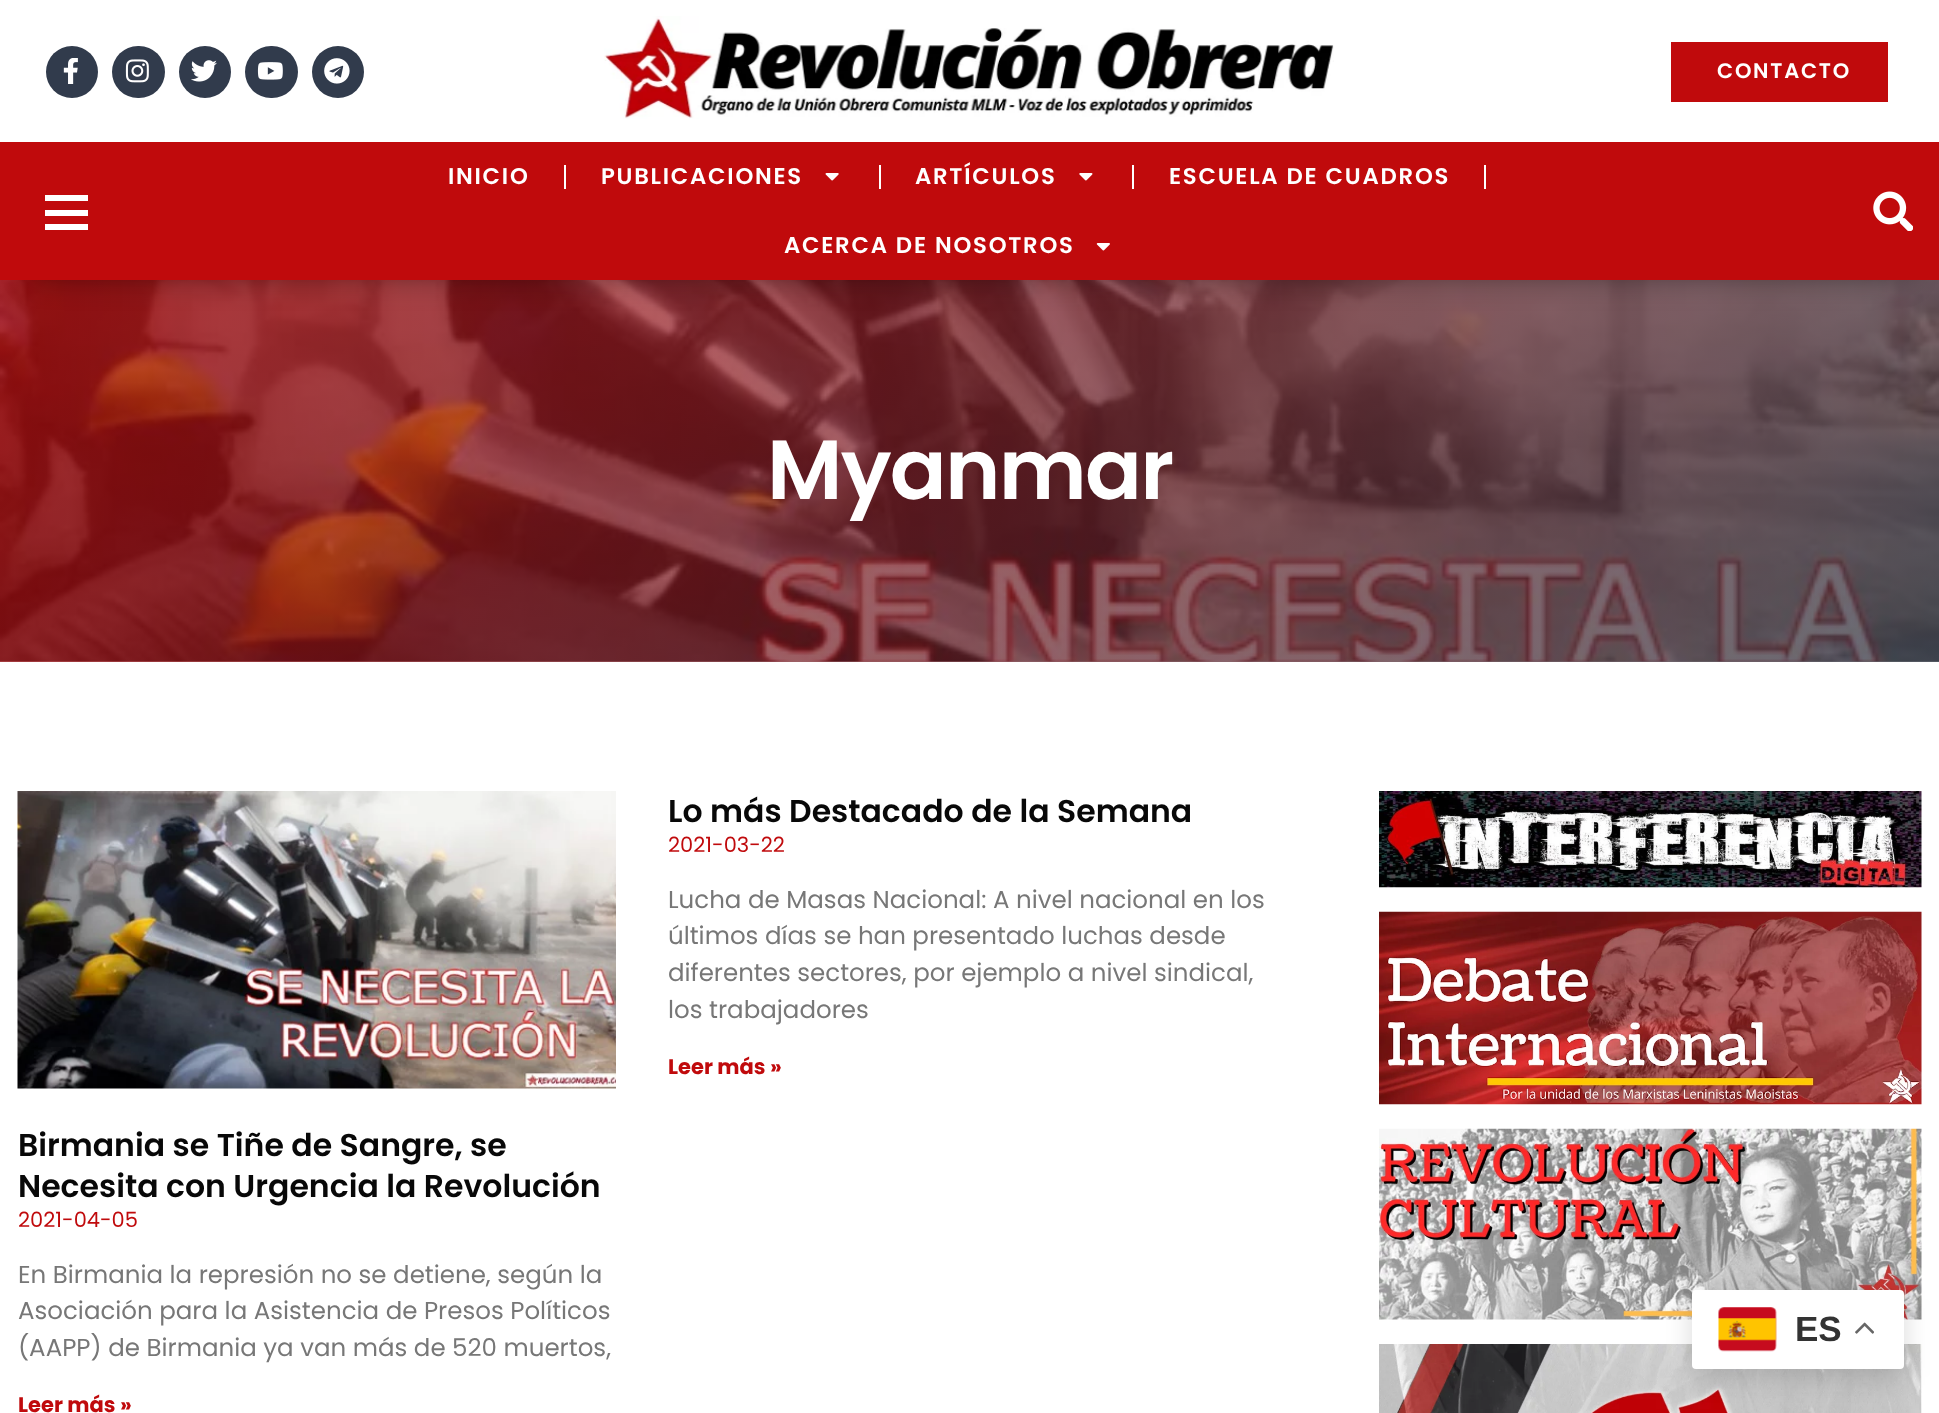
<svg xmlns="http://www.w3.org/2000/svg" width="1939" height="1413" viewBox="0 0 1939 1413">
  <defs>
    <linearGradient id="g1" gradientUnits="userSpaceOnUse" x1="389" y1="-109" x2="1550" y2="1051"><stop offset="0" stop-color="#c00a0c" stop-opacity="0.7"/><stop offset="1" stop-color="#242c39" stop-opacity="0.7"/></linearGradient>
  </defs>
  <rect width="100%" height="100%" fill="#fff"/>
  <circle cx="72" cy="72" r="26" fill="#313b4c"/>
  <image x="63" y="58" width="15" height="26" href="img/1.png"/>
  <rect x="112" y="46" width="53" height="52" rx="26" fill="#313b4c"/>
  <image x="125" y="59" width="24" height="24" href="img/2.png"/>
  <circle cx="205" cy="72" r="26" fill="#313b4c"/>
  <image x="191" y="60" width="26" height="22" href="img/3.png"/>
  <rect x="245" y="46" width="53" height="52" rx="26" fill="#313b4c"/>
  <image x="257" y="62" width="26" height="18" href="img/4.png"/>
  <circle cx="338" cy="72" r="26" fill="#313b4c"/>
  <image x="324" y="58" width="26" height="26" href="img/5.png"/>
  <image x="604" y="16" width="730" height="103" href="img/6.png"/>
  <path d="M1671 42h217v60H1671z" fill="#c00a0c"/>
  <image x="0" y="280" width="1939" height="382" href="img/11.png"/>
  <path d="M0 280h1939v382H0z" fill="url(#g1)"/>
  <path d="M35 205h1869v68H35z" fill="#00000080" filter="blur(16.5px)"/>
  <path d="M0 142h1939v138H0z" fill="#c00a0c"/>
  <path d="M88 195V201H45V195ZM45 216H88V210H45ZM45 230H88V224H45Z" fill="#fff"/>
  <path d="M564 165h2v24H564z" fill="#fff"/>
  <image x="825" y="173" width="14" height="8" href="img/7.png"/>
  <path d="M879 165h2v24H879z" fill="#fff"/>
  <image x="1079" y="173" width="14" height="8" href="img/8.png"/>
  <path d="M1132 165h2v24H1132z" fill="#fff"/>
  <path d="M1484 165h2v24H1484z" fill="#fff"/>
  <image x="1096" y="243" width="14" height="8" href="img/9.png"/>
  <image x="1873" y="191" width="40" height="40" href="img/10.png"/>
  <image x="17" y="791" width="599" height="298" href="img/12.png"/>
  <image x="1379" y="791" width="543" height="97" href="img/13.png"/>
  <image x="1379" y="911" width="543" height="194" href="img/14.png"/>
  <image x="1379" y="1128" width="543" height="192" href="img/15.png"/>
  <image x="1379" y="1344" width="543" height="69" href="img/16.png"/>
  <rect x="1692" y="1299" width="212" height="78" rx="4" fill="#00000026" filter="blur(13px)"/>
  <rect x="1692" y="1290" width="212" height="79" rx="4" fill="#fff"/>
  <image x="1718" y="1307" width="59" height="45" href="img/17.png"/>
  <image x="1855" y="1322" width="19" height="12" href="img/18.png"/>
  <text x="1717" y="78" font-family="Poppins" font-size="21" font-weight="600" letter-spacing="1.75" fill="#fff">CONTACTO</text>
  <g font-family="Poppins" font-size="22.75" font-weight="600" letter-spacing="1.75" fill="#fff">
    <text x="448" y="184">INICIO</text>
    <text x="601" y="184">PUBLICACIONES</text>
    <text x="915" y="184">ARTÍCULOS</text>
    <text x="1169" y="184">ESCUELA DE CUADROS</text>
    <text x="784" y="253">ACERCA DE NOSOTROS</text>
  </g>
  <text x="767" y="499" font-family="Poppins" font-size="84" font-weight="600" letter-spacing="-1.75" fill="#fff">Myanmar</text>
  <text x="668" y="822" font-family="Poppins" font-size="31.5" font-weight="600" fill="#080808">Lo más Destacado de la Semana</text>
  <text x="668" y="852" font-family="Poppins" font-size="21" fill="#c00a0c">2021-03-22</text>
  <g font-family="Poppins" font-size="24.5" fill="#777">
    <text x="668" y="908">Lucha de Masas Nacional: A nivel nacional en los</text>
    <text x="668" y="944">últimos días se han presentado luchas desde</text>
    <text x="668" y="981">diferentes sectores, por ejemplo a nivel sindical,</text>
    <text x="668" y="1018">los trabajadores</text>
  </g>
  <text x="668" y="1074" font-family="Poppins" font-size="21" font-weight="bold" fill="#c00a0c">Leer más »</text>
  <g font-family="Poppins" font-size="31.5" font-weight="600" fill="#080808">
    <text x="18" y="1156">Birmania se Tiñe de Sangre, se</text>
    <text x="18" y="1197">Necesita con Urgencia la Revolución</text>
  </g>
  <text x="18" y="1227" font-family="Poppins" font-size="21" fill="#c00a0c">2021-04-05</text>
  <g font-family="Poppins" font-size="24.5" fill="#777">
    <text x="18" y="1283">En Birmania la represión no se detiene, según la</text>
    <text x="18" y="1319">Asociación para la Asistencia de Presos Políticos</text>
    <text x="18" y="1356">(AAPP) de Birmania ya van más de 520 muertos,</text>
  </g>
  <text x="18" y="1412" font-family="Poppins" font-size="21" font-weight="bold" fill="#c00a0c">Leer más »</text>
  <text x="1795" y="1341" font-family="Liberation Sans" font-size="35" font-weight="bold" fill="#333">ES</text>
</svg>
